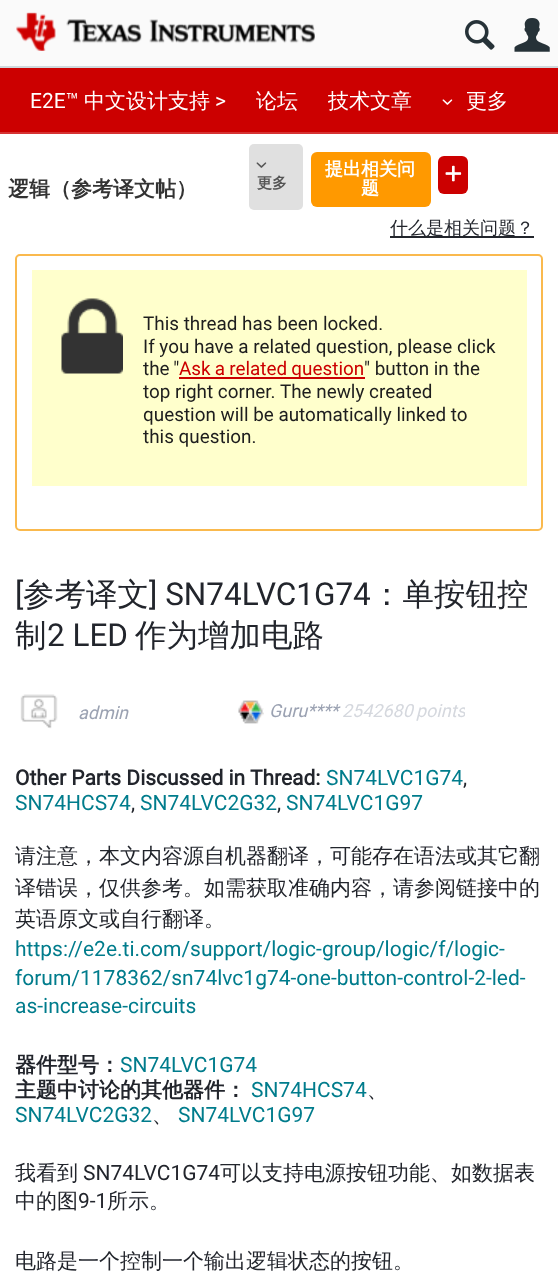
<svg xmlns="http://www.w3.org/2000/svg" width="558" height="1280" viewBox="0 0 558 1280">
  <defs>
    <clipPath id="clip1"><path d="M15 687h450v48H15z"/></clipPath>
  </defs>
  <rect width="100%" height="100%" fill="#fff"/>
  <path d="M0 66h558v2H0z" fill="#cfd8dc"/>
  <path d="M0 0h558v66H0z" fill="#fafafa"/>
  <image x="16" y="12" width="299" height="39" href="img/1.png"/>
  <image x="465" y="20" width="30" height="30" href="img/2.png"/>
  <image x="514" y="18" width="36" height="34" href="img/3.png"/>
  <path d="M0 68h558v64H0z" fill="#c00"/>
  <path d="M0 132h558v2H0z" fill="#d63333"/>
  <image x="442" y="99" width="11" height="6" href="img/4.png"/>
  <rect x="249" y="144" width="54" height="66" rx="5" fill="#e0e0e0"/>
  <image x="256" y="162" width="11" height="6" href="img/5.png"/>
  <rect x="438" y="156" width="30" height="38" rx="6" fill="#c00"/>
  <image x="445" y="165" width="17" height="17" href="img/6.png"/>
  <rect x="311" y="152" width="120" height="55" rx="6" fill="#f90"/>
  <path d="M390 236h144v2H390z" fill="#22252c"/>
  <rect x="16" y="255" width="526" height="275" rx="4" fill="none" stroke="#fab94d" stroke-width="2"/>
  <path d="M32 270h495v216H32z" fill="#ffc"/>
  <image x="61" y="298" width="62" height="76" href="img/7.png"/>
  <path d="M179 377h186v2H179z" fill="#c00"/>
  <image x="20" y="694" width="38" height="35" href="img/8.png"/>
  <image x="238" y="700" width="26" height="24" href="img/9.png"/>
  <text x="30" y="108" font-family="Roboto" font-size="21" fill="#fff">E2E™</text>
  <text x="84" y="108" font-family="WenQuanYi Zen Hei" font-size="21" font-weight="500" fill="#fff">中文设计支持</text>
  <text x="215" y="108" font-family="Roboto" font-size="21" fill="#fff">&gt;</text>
  <g font-family="WenQuanYi Zen Hei" font-size="21" font-weight="500" fill="#fff">
    <text x="256" y="108">论坛</text>
    <text x="328" y="108">技术文章</text>
    <text x="466" y="108">更多</text>
  </g>
  <text x="8" y="196" font-family="WenQuanYi Zen Hei" font-size="21" font-weight="bold" fill="#333">逻辑（参考译文帖）</text>
  <text x="257" y="188" font-family="WenQuanYi Zen Hei" font-size="15" font-weight="bold" fill="#555">更多</text>
  <g font-family="WenQuanYi Zen Hei" font-size="18" font-weight="bold" fill="#fff">
    <text x="325" y="175">提出相关问</text>
    <text x="361" y="194">题</text>
  </g>
  <text x="390" y="234" font-family="WenQuanYi Zen Hei" font-size="18" font-weight="500" fill="#22252c">什么是相关问题？</text>
  <g font-family="Roboto" font-size="18.9" fill="#1e1e1e">
    <text x="143" y="330">This thread has been locked.</text>
    <text x="143" y="353">If you have a related question, please click</text>
    <text x="143" y="375" word-spacing="-1">the "</text>
  </g>
  <text x="179" y="375" word-spacing="-0.5" font-family="Roboto" font-size="18.9" fill="#c00">Ask a related question</text>
  <g font-family="Roboto" font-size="18.9" fill="#1e1e1e">
    <text x="364" y="375">" button in the</text>
    <text x="143" y="398">top right corner. The newly created</text>
    <text x="143" y="421">question will be automatically linked to</text>
    <text x="143" y="443">this question.</text>
  </g>
  <text x="15" y="605" font-family="Roboto" font-size="31.5" fill="#22252c">[</text>
  <text x="23" y="605" font-family="WenQuanYi Zen Hei" font-size="31.5" font-weight="500" fill="#22252c">参考译文</text>
  <text x="149" y="605" font-family="Roboto" font-size="31.5" fill="#22252c">] SN74LVC1G74</text>
  <g font-family="WenQuanYi Zen Hei" font-size="31.5" font-weight="500" fill="#22252c">
    <text x="371" y="605">：单按钮控</text>
    <text x="15" y="646">制</text>
  </g>
  <text x="47" y="646" font-family="Roboto" font-size="31.5" fill="#22252c">2 LED</text>
  <text x="135" y="646" font-family="WenQuanYi Zen Hei" font-size="31.5" font-weight="500" fill="#22252c">作为增加电路</text>
  <g font-family="Roboto" font-size="18" font-style="italic" fill="#9ba2b2">
    <text x="78" y="719">admin</text>
    <text x="269" y="717">Guru****</text>
  </g>
  <text x="342" y="717" font-family="Roboto" font-size="18" font-style="italic" fill="#d5d8de">2542680</text>
  <g clip-path="url(#clip1)">
    <text x="416" y="717" font-family="Roboto" font-size="18" font-style="italic" fill="#d5d8de">points</text>
  </g>
  <text x="15" y="785" font-family="Roboto" font-size="21" font-weight="bold" fill="#22252c">Other Parts Discussed in Thread:</text>
  <text x="326" y="785" font-family="Roboto" font-size="21" fill="#007c8c">SN74LVC1G74</text>
  <text x="463" y="785" font-family="Roboto" font-size="21" fill="#22252c">,</text>
  <text x="15" y="810" font-family="Roboto" font-size="21" fill="#007c8c">SN74HCS74</text>
  <text x="131" y="810" font-family="Roboto" font-size="21" fill="#22252c">,</text>
  <text x="140" y="810" font-family="Roboto" font-size="21" fill="#007c8c">SN74LVC2G32</text>
  <text x="277" y="810" font-family="Roboto" font-size="21" fill="#22252c">,</text>
  <text x="286" y="810" font-family="Roboto" font-size="21" fill="#007c8c">SN74LVC1G97</text>
  <g font-family="WenQuanYi Zen Hei" font-size="21" font-weight="500" fill="#22252c">
    <text x="15" y="863">请注意，本文内容源自机器翻译，可能存在语法或其它翻</text>
    <text x="15" y="895">译错误，仅供参考。如需获取准确内容，请参阅链接中的</text>
    <text x="15" y="926">英语原文或自行翻译。</text>
  </g>
  <g font-family="Roboto" font-size="21" fill="#007c8c">
    <text x="15" y="956">https://e2e.ti.com/support/logic-group/logic/f/logic-</text>
    <text x="15" y="985">forum/1178362/sn74lvc1g74-one-button-control-2-led-</text>
    <text x="15" y="1013">as-increase-circuits</text>
  </g>
  <text x="15" y="1072" font-family="WenQuanYi Zen Hei" font-size="21" font-weight="bold" fill="#22252c">器件型号：</text>
  <text x="120" y="1072" font-family="Roboto" font-size="21" fill="#007c8c">SN74LVC1G74</text>
  <text x="15" y="1097" font-family="WenQuanYi Zen Hei" font-size="21" font-weight="bold" fill="#22252c">主题中讨论的其他器件：</text>
  <text x="251" y="1097" font-family="Roboto" font-size="21" fill="#007c8c">SN74HCS74</text>
  <text x="367" y="1097" font-family="WenQuanYi Zen Hei" font-size="21" font-weight="500" fill="#22252c">、</text>
  <text x="15" y="1122" font-family="Roboto" font-size="21" fill="#007c8c">SN74LVC2G32</text>
  <text x="152" y="1122" font-family="WenQuanYi Zen Hei" font-size="21" font-weight="500" fill="#22252c">、</text>
  <text x="178" y="1122" font-family="Roboto" font-size="21" fill="#007c8c">SN74LVC1G97</text>
  <text x="15" y="1180" font-family="WenQuanYi Zen Hei" font-size="21" font-weight="500" fill="#22252c">我看到</text>
  <text x="83" y="1180" font-family="Roboto" font-size="21" fill="#22252c">SN74LVC1G74</text>
  <g font-family="WenQuanYi Zen Hei" font-size="21" font-weight="500" fill="#22252c">
    <text x="220" y="1180">可以支持电源按钮功能、如数据表</text>
    <text x="15" y="1208">中的图</text>
  </g>
  <text x="78" y="1208" font-family="Roboto" font-size="21" fill="#22252c">9-1</text>
  <g font-family="WenQuanYi Zen Hei" font-size="21" font-weight="500" fill="#22252c">
    <text x="107" y="1208">所示。</text>
    <text x="15" y="1268">电路是一个控制一个输出逻辑状态的按钮。</text>
  </g>
</svg>
